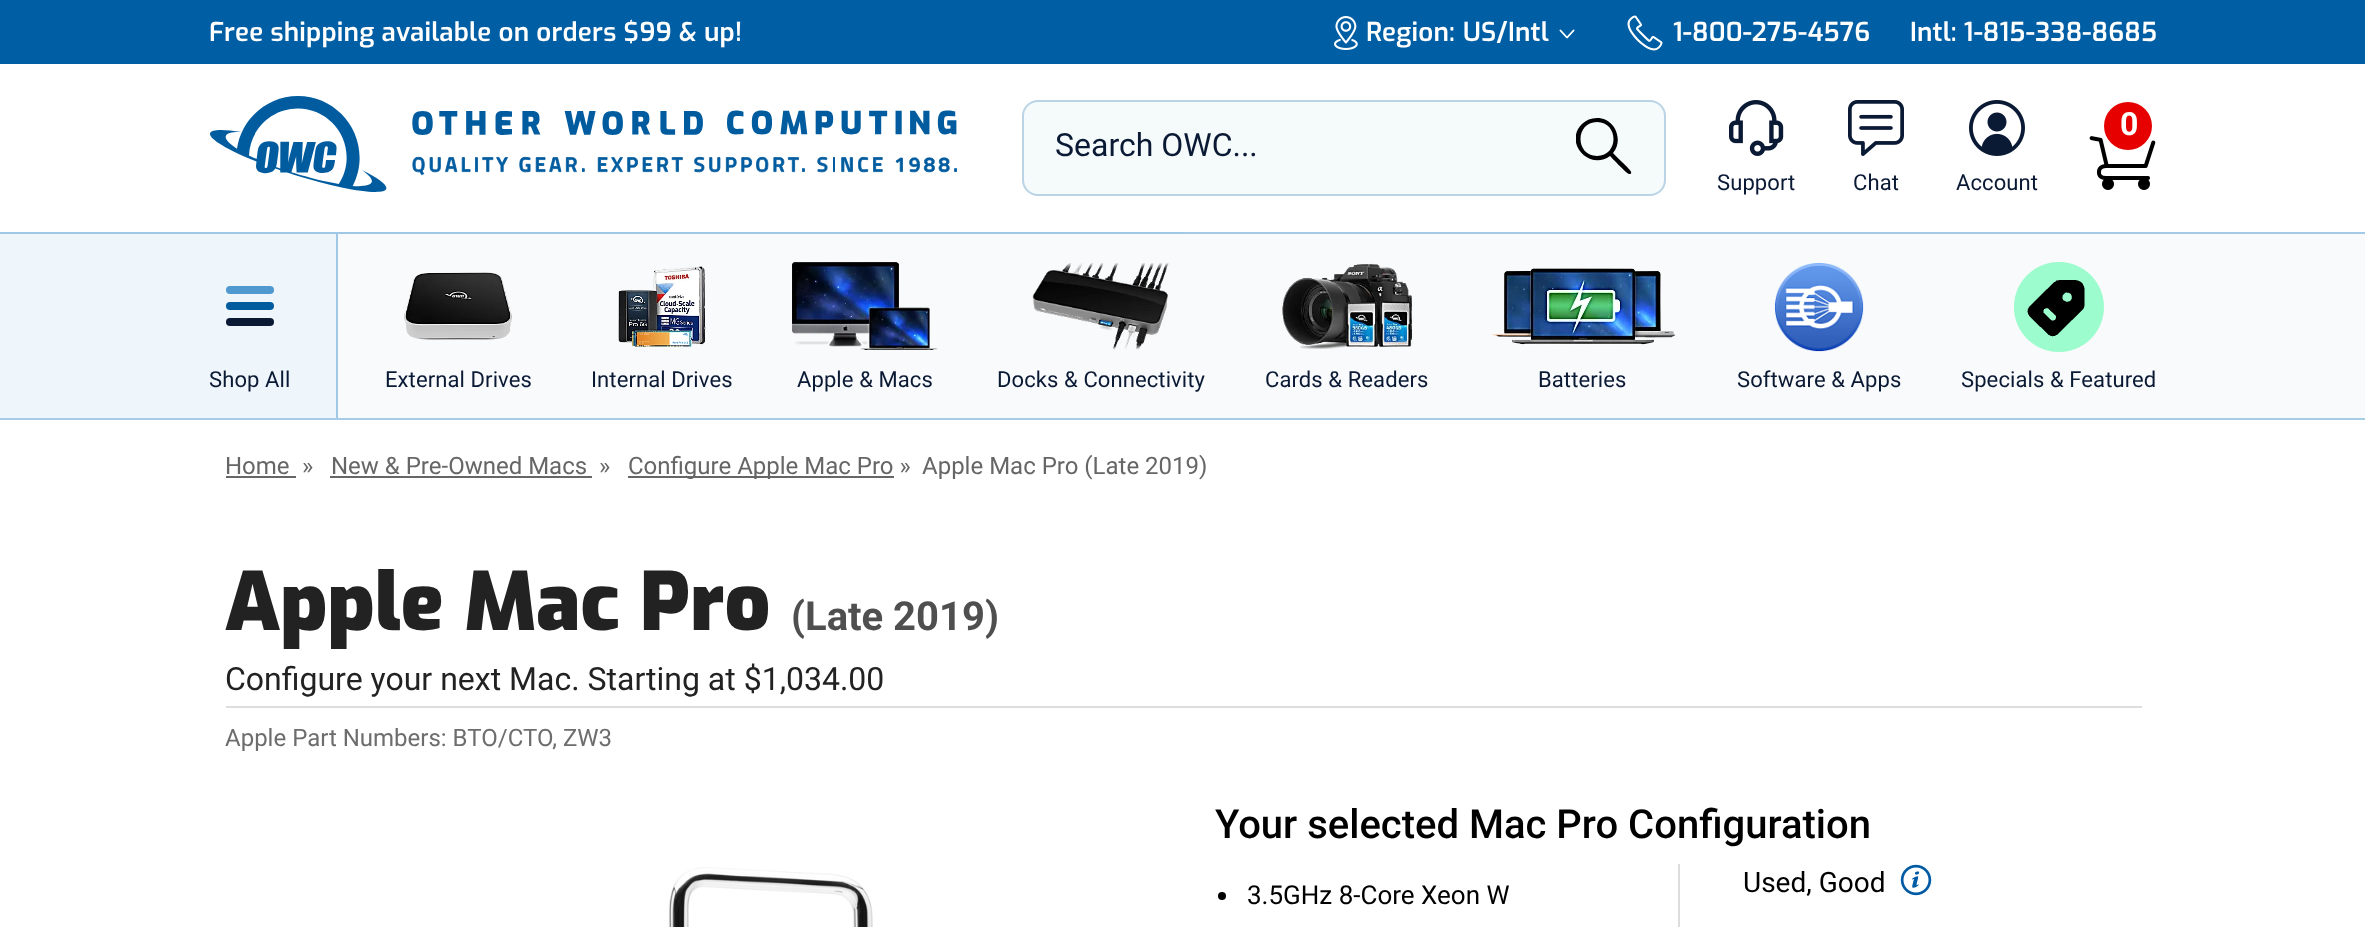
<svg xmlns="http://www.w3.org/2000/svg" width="2365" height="927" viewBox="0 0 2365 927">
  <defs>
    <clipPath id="clip1"><path d="M1576 118h56v58H1576z"/></clipPath>
  </defs>
  <rect width="100%" height="100%" fill="#fff"/>
  <path d="M0 0h2365v64H0z" fill="#005ea4"/>
  <image x="1334" y="16" width="24" height="34" href="img/1.png"/>
  <image x="1559" y="29" width="16" height="10" href="img/2.png"/>
  <image x="1627" y="15" width="36" height="36" href="img/3.png"/>
  <path d="M0 418h2365v2H0z" fill="#a7cce8"/>
  <image x="210" y="96" width="747" height="96" href="img/4.png"/>
  <rect x="1022" y="100" width="644" height="96" rx="16" fill="#f5fafb"/>
  <rect x="1023" y="101" width="642" height="94" rx="15" fill="none" stroke="#005c9f3d" stroke-width="2"/>
  <g clip-path="url(#clip1)">
    <path d="M1597 118C1615 118 1624 140 1613 153C1622 163 1637 174 1629 174C1627 174 1612 158 1610 156C1590 171 1563 143 1582 124C1586 120 1591 118 1597 118ZM1597 122C1575 122 1575 156 1597 156C1619 156 1619 122 1597 122Z" fill="#000"/>
  </g>
  <circle cx="2128" cy="126" r="24" fill="#e60000"/>
  <image x="2089" y="136" width="67" height="54" href="img/5.png"/>
  <image x="1729" y="100" width="55" height="56" href="img/6.png"/>
  <image x="1848" y="100" width="56" height="56" href="img/7.png"/>
  <image x="1969" y="100" width="56" height="56" href="img/8.png"/>
  <path d="M0 234h336v184H0z" fill="#eef5fb"/>
  <path d="M0 232h1184v2H0z" fill="#9fc7e6"/>
  <path d="M338 234h2027v184H338z" fill="#f8fafb"/>
  <path d="M1184 232h1181v2H1184z" fill="#a4c9e6"/>
  <path d="M336 234h2v184H336z" fill="#9fc7e6"/>
  <rect x="226" y="286" width="48" height="8" rx="4" fill="#4f98d0"/>
  <rect x="226" y="302" width="48" height="8" rx="4" fill="#005c9f"/>
  <rect x="226" y="318" width="48" height="8" rx="4" fill="#0a1934"/>
  <image x="404" y="272" width="108" height="68" href="img/9.png"/>
  <image x="618" y="266" width="88" height="81" href="img/10.png"/>
  <image x="792" y="262" width="146" height="88" href="img/11.png"/>
  <image x="1032" y="263" width="137" height="87" href="img/12.png"/>
  <image x="1282" y="263" width="132" height="86" href="img/13.png"/>
  <image x="1490" y="268" width="186" height="77" href="img/14.png"/>
  <image x="1774" y="262" width="90" height="90" href="img/15.png"/>
  <image x="2014" y="262" width="90" height="90" href="img/16.png"/>
  <path d="M226 476h70v2H226z" fill="#666"/>
  <path d="M330 476h262v2H330z" fill="#666"/>
  <path d="M628 476h266v2H628z" fill="#666"/>
  <path d="M226 706h1916v2H226z" fill="#ddd"/>
  <image x="668" y="867" width="205" height="60" href="img/17.png"/>
  <circle cx="1222" cy="896" r="4" fill="#000"/>
  <path d="M1678 864h2v63H1678z" fill="#ddd"/>
  <image x="1900" y="864" width="32" height="32" href="img/18.png"/>
  <g font-family="Exo" font-size="26" font-weight="600" letter-spacing="0.2" fill="#fff">
    <text x="209" y="41">Free shipping available on orders $99 &amp; up!</text>
    <text x="1366" y="41">Region:</text>
    <text x="1463" y="41">US/Intl</text>
    <text x="1673" y="41">1-800-275-4576</text>
    <text x="1910" y="41">Intl: 1-815-338-8685</text>
  </g>
  <text x="1055" y="156" font-family="Roboto" font-size="32" fill="#0a1934">Search OWC...</text>
  <text x="2120" y="135" font-family="Roboto" font-size="32" font-weight="bold" fill="#fff">0</text>
  <g font-family="Roboto" font-size="22" letter-spacing="0.1" fill="#0a1934">
    <text x="1717" y="190">Support</text>
    <text x="1853" y="190">Chat</text>
    <text x="1956" y="190">Account</text>
    <text x="209" y="387">Shop All</text>
    <text x="385" y="387">External Drives</text>
    <text x="591" y="387">Internal Drives</text>
    <text x="797" y="387">Apple &amp; Macs</text>
    <text x="997" y="387">Docks &amp; Connectivity</text>
    <text x="1265" y="387">Cards &amp; Readers</text>
    <text x="1538" y="387">Batteries</text>
    <text x="1737" y="387">Software &amp; Apps</text>
    <text x="1961" y="387">Specials &amp; Featured</text>
  </g>
  <g font-family="Roboto" font-size="24" fill="#666">
    <text x="225" y="474">Home</text>
    <text x="302" y="474">»</text>
    <text x="331" y="474">New &amp; Pre-Owned Macs</text>
    <text x="599" y="474">»</text>
    <text x="628" y="474">Configure Apple Mac Pro »</text>
    <text x="922" y="474">Apple Mac Pro (Late 2019)</text>
  </g>
  <text x="225" y="630" font-family="Exo" font-size="80" font-weight="900" fill="#222">Apple Mac Pro</text>
  <text x="791" y="630" font-family="Roboto" font-size="40" font-weight="bold" fill="#4f4f4f">(Late 2019)</text>
  <text x="225" y="690" font-family="Roboto" font-size="32" fill="#222">Configure your next Mac. Starting at $1,034.00</text>
  <text x="225" y="746" font-family="Roboto" font-size="24" fill="#6d6d6d">Apple Part Numbers: BTO/CTO, ZW3</text>
  <text x="1215" y="838" font-family="Roboto" font-size="40" font-weight="500" fill="#000">Your selected Mac Pro Configuration</text>
  <text x="1247" y="904" font-family="Roboto" font-size="26" fill="#000">3.5GHz 8-Core Xeon W</text>
  <text x="1743" y="892" font-family="Roboto" font-size="28" fill="#000">Used, Good</text>
</svg>
